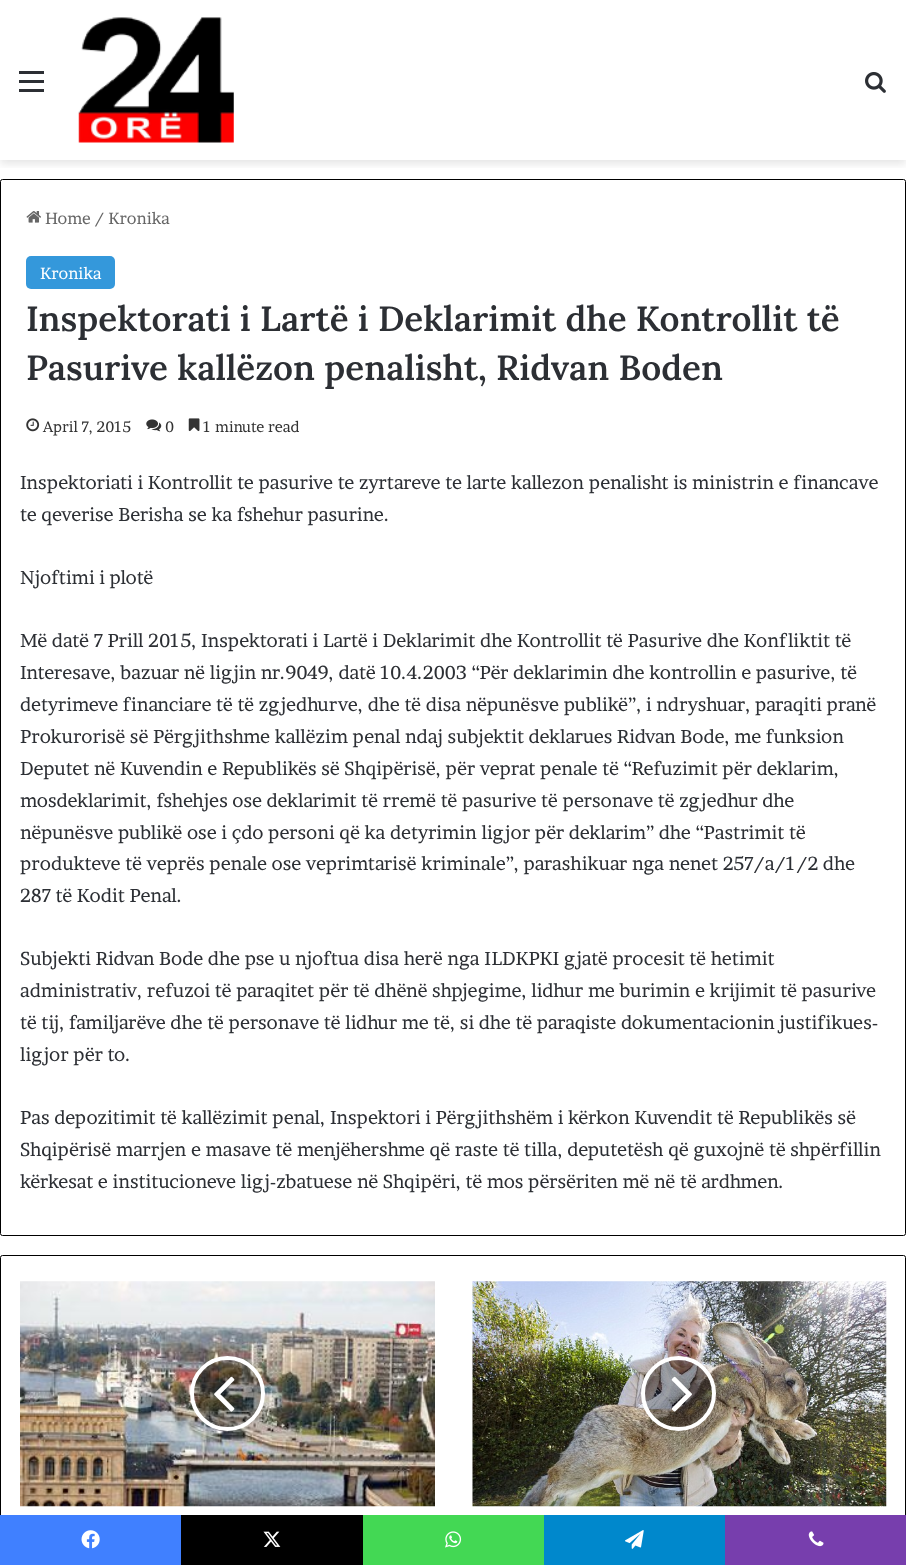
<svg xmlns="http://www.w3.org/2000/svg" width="906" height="1565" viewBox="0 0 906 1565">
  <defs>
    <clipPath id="clip1"><path d="M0 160h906v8H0z"/></clipPath>
  </defs>
  <rect width="100%" height="100%" fill="#fff"/>
  <g clip-path="url(#clip1)">
    <path d="M0 4h906v160H0z" fill="#0000001a" filter="blur(4.5px)"/>
  </g>
  <path d="M19 80h25v3H19z" fill="#2c2f34"/>
  <path d="M19 71h25v3H19z" fill="#2c2f34"/>
  <path d="M19 89h25v3H19z" fill="#2c2f34"/>
  <image x="78" y="17" width="156" height="126" href="img/1.png"/>
  <image x="865" y="72" width="21" height="21" href="img/2.png"/>
  <rect x="0.5" y="179.5" width="905" height="1056" rx="2" fill="none" stroke="#000"/>
  <image x="26" y="211" width="15" height="12" href="img/3.png"/>
  <rect x="26" y="256" width="89" height="33" rx="5" fill="#3498db"/>
  <image x="26" y="418" width="14" height="14" href="img/4.png"/>
  <image x="146" y="419" width="16" height="13" href="img/5.png"/>
  <image x="188" y="418" width="12" height="14" href="img/6.png"/>
  <rect x="0.5" y="1255.5" width="905" height="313" rx="2" fill="none" stroke="#000"/>
  <image x="20" y="1281" width="415" height="226" href="img/7.png"/>
  <circle cx="227.5" cy="1393.5" r="35.5" fill="#0000004d" stroke="#fff" stroke-width="4"/>
  <image x="214" y="1376" width="21" height="36" href="img/8.png"/>
  <image x="472" y="1281" width="415" height="226" href="img/9.png"/>
  <circle cx="678.5" cy="1393.5" r="35.5" fill="#0000004d" stroke="#fff" stroke-width="4"/>
  <image x="671" y="1376" width="21" height="36" href="img/10.png"/>
  <path d="M0 1515h181v50H0z" fill="#4080ff"/>
  <image x="81" y="1530" width="19" height="19" href="img/11.png"/>
  <path d="M181 1515h182v50H181z" fill="#000"/>
  <image x="263" y="1531" width="18" height="16" href="img/12.png"/>
  <path d="M363 1515h181v50H363z" fill="#43d854"/>
  <image x="445" y="1531" width="17" height="17" href="img/13.png"/>
  <path d="M544 1515h181v50H544z" fill="#08c"/>
  <image x="625" y="1530" width="19" height="19" href="img/14.png"/>
  <path d="M725 1515h181v50H725z" fill="#773ead"/>
  <image x="808" y="1531" width="16" height="16" href="img/15.png"/>
  <text x="45" y="224" font-family="Brawler" font-size="16.25" fill="#666">Home / Kronika</text>
  <text x="40" y="279" font-family="Brawler" font-size="16.25" fill="#fff">Kronika</text>
  <g font-family="Lora" font-size="35" font-weight="600" fill="#2c2f34">
    <text x="26" y="331">Inspektorati i Lartë i Deklarimit dhe Kontrollit të</text>
    <text x="26" y="380">Pasurive kallëzon penalisht, Ridvan Boden</text>
  </g>
  <g font-family="Brawler" font-size="15" fill="#333">
    <text x="43" y="432">April 7, 2015</text>
    <text x="165" y="432">0</text>
    <text x="203" y="432">1 minute read</text>
  </g>
  <g font-family="Brawler" font-size="18.75" fill="#2c2f34">
    <text x="20" y="489">Inspektoriati i Kontrollit te pasurive te zyrtareve te larte kallezon penalisht is ministrin e financave</text>
    <text x="20" y="521">te qeverise Berisha se ka fshehur pasurine.</text>
    <text x="20" y="584">Njoftimi i plotë</text>
    <text x="20" y="647">Më datë 7 Prill 2015, Inspektorati i Lartë i Deklarimit dhe Kontrollit të Pasurive dhe Konfliktit të</text>
    <text x="20" y="679">Interesave, bazuar në ligjin nr.9049, datë 10.4.2003 “Për deklarimin dhe kontrollin e pasurive, të</text>
    <text x="20" y="711">detyrimeve financiare të të zgjedhurve, dhe të disa nëpunësve publikë”, i ndryshuar, paraqiti pranë</text>
    <text x="20" y="743">Prokurorisë së Përgjithshme kallëzim penal ndaj subjektit deklarues Ridvan Bode, me funksion</text>
    <text x="20" y="775">Deputet në Kuvendin e Republikës së Shqipërisë, për veprat penale të “Refuzimit për deklarim,</text>
    <text x="20" y="807">mosdeklarimit, fshehjes ose deklarimit të rremë të pasurive të personave të zgjedhur dhe</text>
    <text x="20" y="839">nëpunësve publikë ose i çdo personi që ka detyrimin ligjor për deklarim” dhe “Pastrimit të</text>
    <text x="20" y="870">produkteve të veprës penale ose veprimtarisë kriminale”, parashikuar nga nenet 257/a/1/2 dhe</text>
    <text x="20" y="902">287 të Kodit Penal.</text>
    <text x="20" y="965">Subjekti Ridvan Bode dhe pse u njoftua disa herë nga ILDKPKI gjatë procesit të hetimit</text>
    <text x="20" y="997">administrativ, refuzoi të paraqitet për të dhënë shpjegime, lidhur me burimin e krijimit të pasurive</text>
    <text x="20" y="1029">të tij, familjarëve dhe të personave të lidhur me të, si dhe të paraqiste dokumentacionin justifikues-</text>
    <text x="20" y="1061">ligjor për to.</text>
    <text x="20" y="1124">Pas depozitimit të kallëzimit penal, Inspektori i Përgjithshëm i kërkon Kuvendit të Republikës së</text>
    <text x="20" y="1156">Shqipërisë marrjen e masave të menjëhershme që raste të tilla, deputetësh që guxojnë të shpërfillin</text>
    <text x="20" y="1188">kërkesat e institucioneve ligj-zbatuese në Shqipëri, të mos përsëriten më në të ardhmen.</text>
  </g>
</svg>
